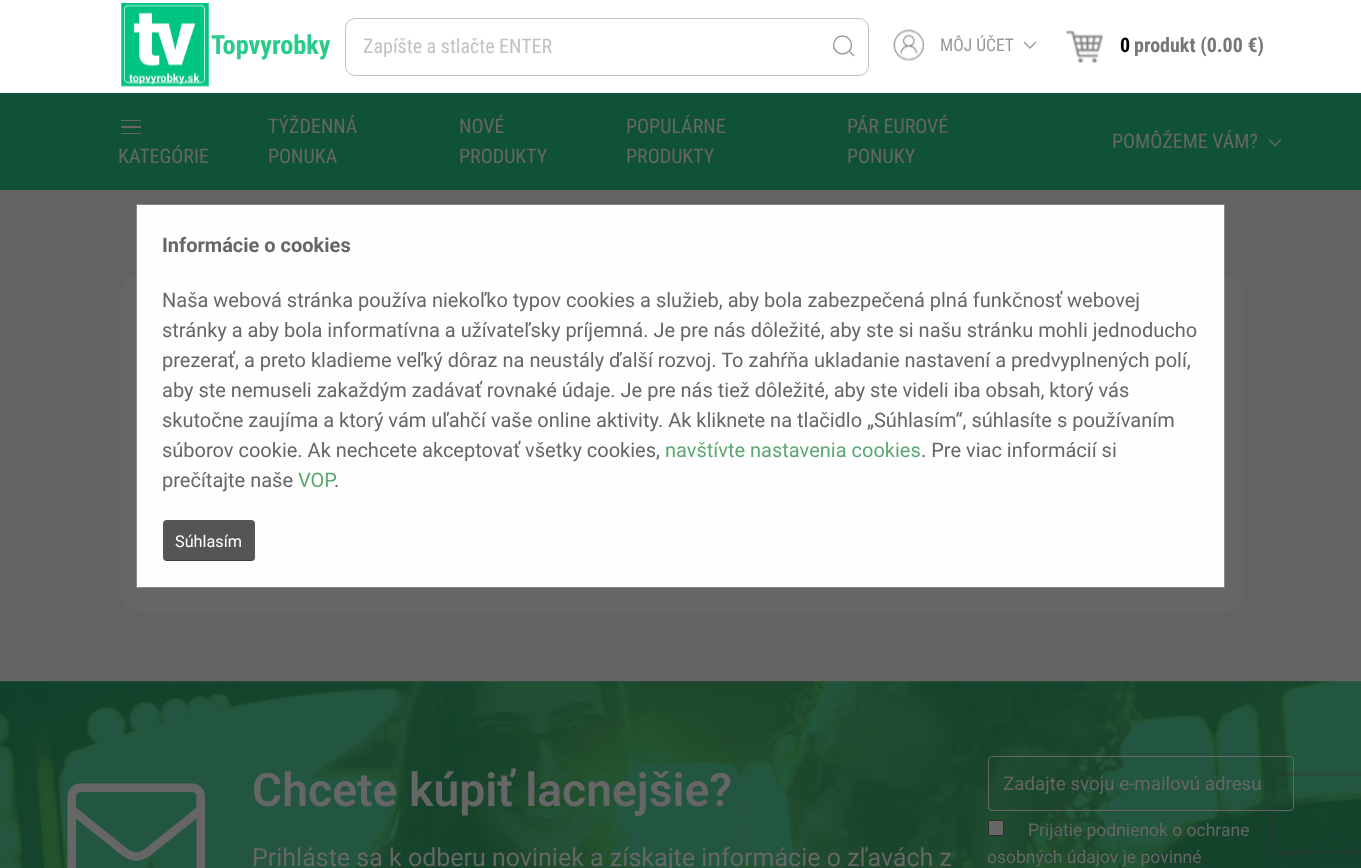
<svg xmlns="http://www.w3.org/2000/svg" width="1361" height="868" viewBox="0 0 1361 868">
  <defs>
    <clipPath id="clip1"><path d="M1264 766H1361V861H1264ZM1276.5 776H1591.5C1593 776 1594 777 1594 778.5V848.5C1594 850 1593 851 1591.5 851H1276.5C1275 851 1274 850 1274 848.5V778.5C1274 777 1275 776 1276.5 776Z" clip-rule="evenodd"/></clipPath>
  </defs>
  <rect width="100%" height="100%" fill="#636363"/>
  <path d="M0 0h1361v93H0z" fill="#fff"/>
  <image x="121" y="3" width="88" height="84" href="img/1.png"/>
  <rect x="345.5" y="18.5" width="523" height="57" rx="9.5" fill="none" stroke="#c2c2c2"/>
  <circle cx="842.5" cy="45" r="9" fill="none" stroke="#999" stroke-width="1.4"/>
  <path d="M849 51L854 56Z" fill="none" stroke="#999" stroke-width="1.4"/>
  <image x="893" y="29" width="31" height="32" href="img/2.png"/>
  <path d="M1024 42L1030 48L1036 42" fill="none" stroke="#999" stroke-width="1.4"/>
  <image x="1066" y="30" width="37" height="33" href="img/3.png"/>
  <path d="M0 93h1361v97H0z" fill="#105236"/>
  <path d="M121 120h20v1H121z" fill="#666"/>
  <path d="M121 126h20v2H121z" fill="#666"/>
  <path d="M121 133h20v1H121z" fill="#666"/>
  <path d="M1269 139.5L1275 145.5L1281 139.5" fill="none" stroke="#666" stroke-width="1.4"/>
  <rect x="119" y="274" width="1125" height="339" rx="25" fill="#666"/>
  <path d="M136.5 204.5h1088v383H136.5z" fill="#fefefe" stroke="#888"/>
  <rect x="163" y="520" width="92" height="41" rx="4" fill="#555"/>
  <path d="M164 559C164 560 166 561 167 561H251C253 561 255 559 255 557V556C255 558 253 560 252 560H166Z" fill="#00000040"/>
  <image x="0" y="681" width="1361" height="187" href="img/4.png"/>
  <image x="67" y="783" width="138" height="85" href="img/5.png"/>
  <rect x="988.5" y="756.5" width="305" height="54" rx="3.5" fill="none" stroke="#666"/>
  <rect x="988.5" y="820.5" width="15" height="15" rx="2" fill="#666" stroke="#2f2f2f"/>
  <g clip-path="url(#clip1)">
    <rect x="1274" y="776" width="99" height="75" rx="2.5" fill="#333" filter="blur(3px)"/>
  </g>
  <text x="211" y="54" font-family="Roboto Condensed" font-size="26.25" font-weight="bold" fill="#28cc88">Topvyrobky</text>
  <text x="363" y="53" font-family="Roboto Condensed" font-size="20" fill="#c2c2c2">Zapíšte a stlačte ENTER</text>
  <text x="940" y="51" font-family="Roboto Condensed" font-size="17.5" fill="#999">MÔJ ÚČET</text>
  <text x="1120" y="52" font-family="Roboto Condensed" font-size="20" font-weight="bold" fill="#000">0</text>
  <text x="1134" y="52" font-family="Roboto Condensed" font-size="20" font-weight="bold" fill="#777">produkt (0.00 €)</text>
  <g font-family="Roboto Condensed" font-size="20" fill="#666">
    <text x="118" y="163">KATEGÓRIE</text>
    <text x="268" y="133">TÝŽDENNÁ</text>
    <text x="268" y="163">PONUKA</text>
    <text x="459" y="133">NOVÉ</text>
    <text x="459" y="163">PRODUKTY</text>
    <text x="626" y="133">POPULÁRNE</text>
    <text x="626" y="163">PRODUKTY</text>
    <text x="847" y="133">PÁR EUROVÉ</text>
    <text x="847" y="163">PONUKY</text>
    <text x="1112" y="148">POMÔŽEME VÁM?</text>
  </g>
  <text x="162" y="252" font-family="Roboto" font-size="20" font-weight="bold" fill="#666">Informácie o cookies</text>
  <g font-family="Roboto" font-size="20" fill="#666">
    <text x="162" y="307">Naša webová stránka používa niekoľko typov cookies a služieb, aby bola zabezpečená plná funkčnosť webovej</text>
    <text x="162" y="337">stránky a aby bola informatívna a užívateľsky príjemná. Je pre nás dôležité, aby ste si našu stránku mohli jednoducho</text>
    <text x="162" y="367">prezerať, a preto kladieme veľký dôraz na neustály ďalší rozvoj. To zahŕňa ukladanie nastavení a predvyplnených polí,</text>
    <text x="162" y="397">aby ste nemuseli zakaždým zadávať rovnaké údaje. Je pre nás tiež dôležité, aby ste videli iba obsah, ktorý vás</text>
    <text x="162" y="427">skutočne zaujíma a ktorý vám uľahčí vaše online aktivity. Ak kliknete na tlačidlo „Súhlasím“, súhlasíte s používaním</text>
    <text x="162" y="457">súborov cookie. Ak nechcete akceptovať všetky cookies,</text>
  </g>
  <text x="665" y="457" font-family="Roboto" font-size="20" fill="#5da770">navštívte nastavenia cookies</text>
  <g font-family="Roboto" font-size="20" fill="#666">
    <text x="921" y="457">. Pre viac informácií si</text>
    <text x="162" y="487">prečítajte naše</text>
  </g>
  <text x="298" y="487" font-family="Roboto" font-size="20" fill="#5da770">VOP</text>
  <text x="334" y="487" font-family="Roboto" font-size="20" fill="#666">.</text>
  <text x="175" y="547" font-family="Roboto" font-size="16.25" fill="#fff">Súhlasím</text>
  <text x="252" y="806" font-family="Roboto" font-size="46.25" font-weight="600" fill="#666">Chcete kúpiť lacnejšie?</text>
  <text x="252" y="866" font-family="Roboto" font-size="25" fill="#666">Prihláste sa k odberu noviniek a získajte informácie o zľavách z</text>
  <text x="1003" y="790" font-family="Roboto" font-size="18.75" fill="#666">Zadajte svoju e-mailovú adresu</text>
  <g font-family="Roboto" font-size="17.5" fill="#666">
    <text x="1028" y="836">Prijatie podnienok o ochrane</text>
    <text x="987" y="863">osobných údajov je povinné</text>
  </g>
</svg>
